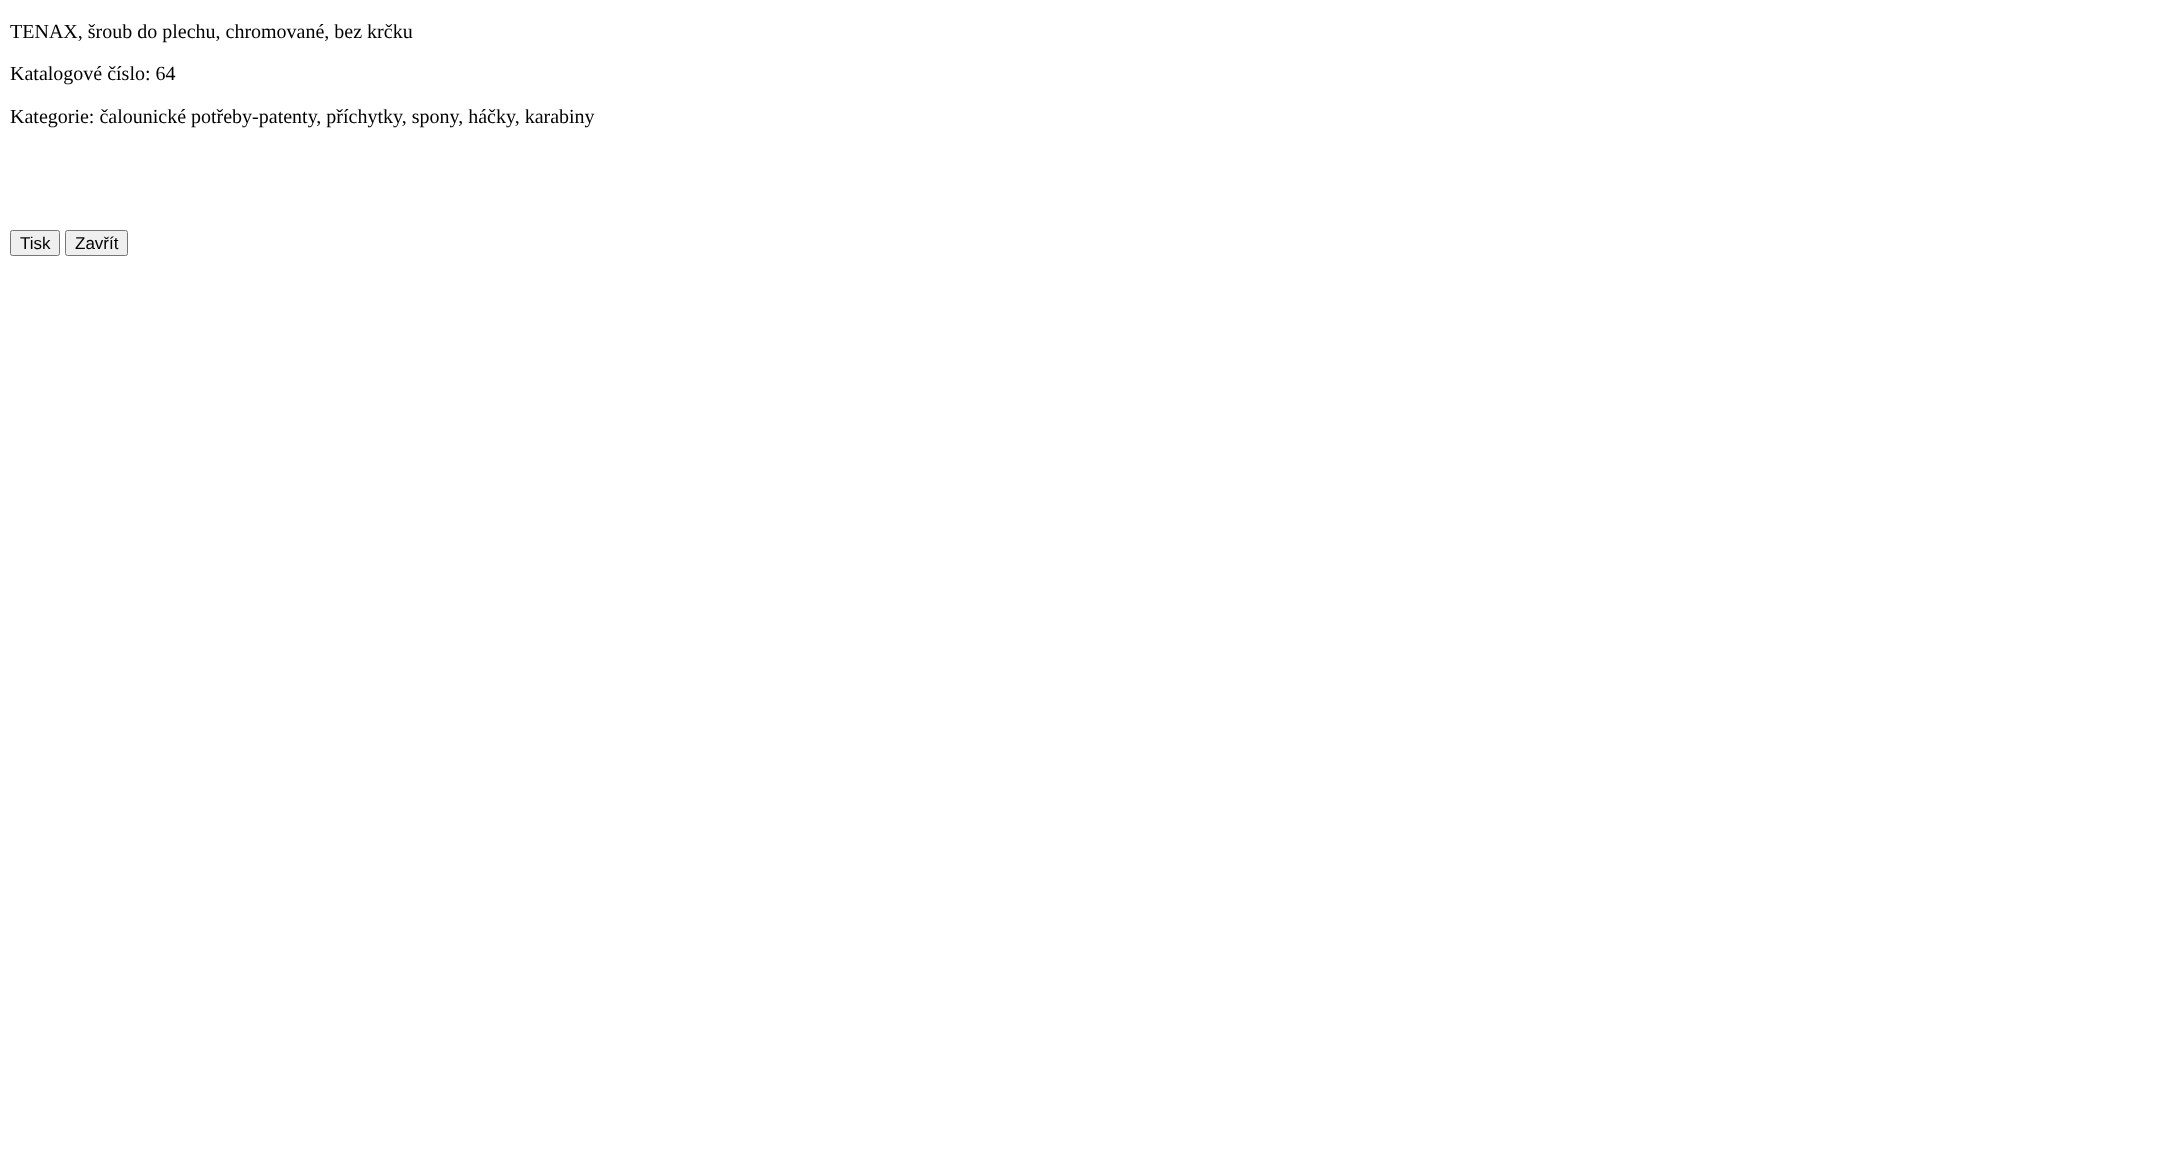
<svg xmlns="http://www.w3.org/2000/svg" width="2158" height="1163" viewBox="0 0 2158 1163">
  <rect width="100%" height="100%" fill="#fff"/>
  <rect x="10.5" y="230.5" width="49" height="25" rx="2" fill="#efefef" stroke="#767676"/>
  <rect x="65.5" y="230.5" width="62" height="25" rx="2" fill="#efefef" stroke="#767676"/>
  <g font-family="Liberation Serif" font-size="20" fill="#000">
    <text x="10" y="38">TENAX, šroub do plechu, chromované, bez krčku</text>
    <text x="10" y="80">Katalogové číslo: 64</text>
    <text x="10" y="123">Kategorie: čalounické potřeby-patenty, příchytky, spony, háčky, karabiny</text>
  </g>
  <g font-family="Liberation Sans" font-size="17" fill="#000">
    <text x="20" y="249">Tisk</text>
    <text x="75" y="249">Zavřít</text>
  </g>
</svg>
